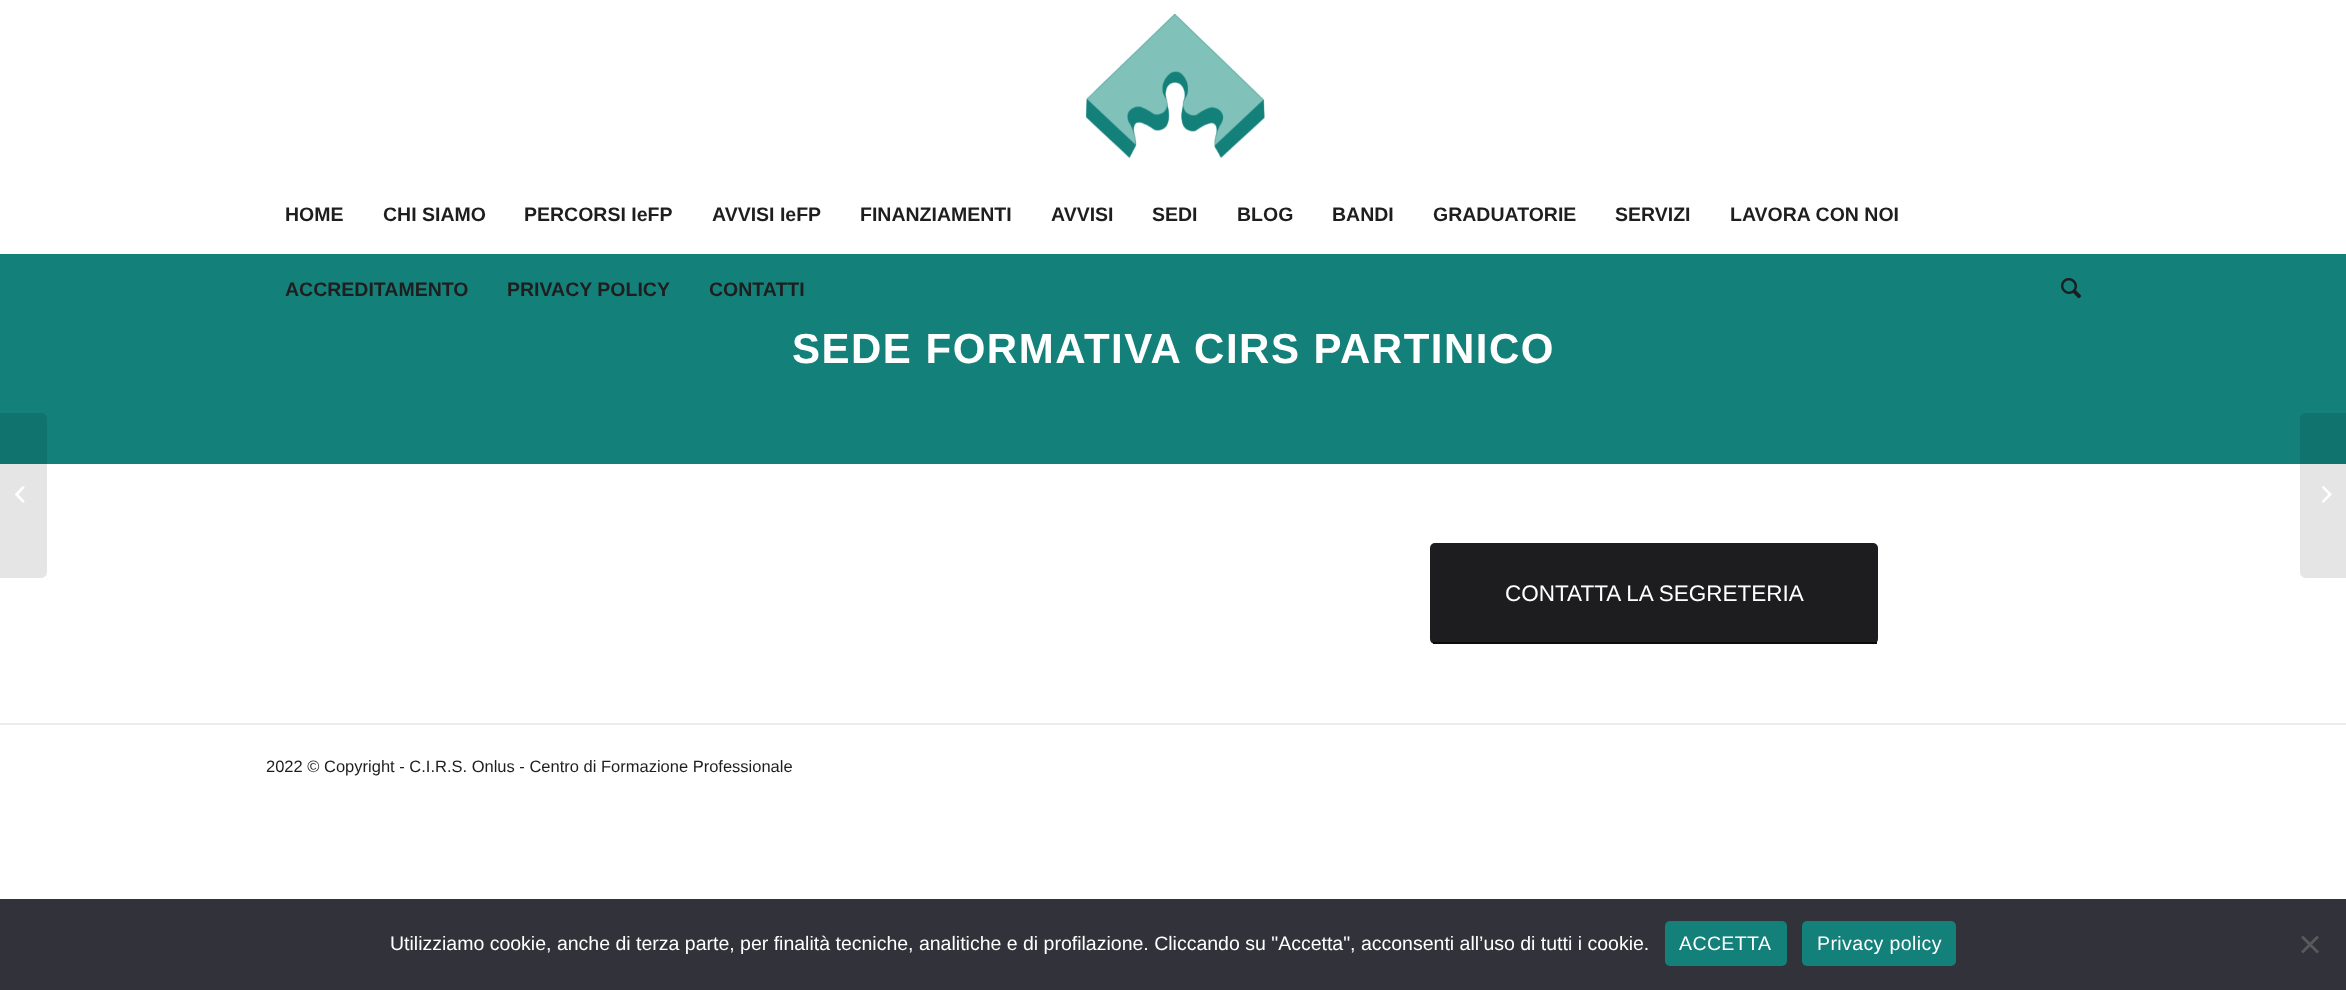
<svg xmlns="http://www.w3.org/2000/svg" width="2346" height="990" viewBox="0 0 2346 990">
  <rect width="100%" height="100%" fill="#fff"/>
  <image x="1085" y="13" width="180" height="146" href="img/1.png"/>
  <path d="M0 254h2346v210H0z" fill="#14807a"/>
  <image x="2061" y="278" width="20" height="21" href="img/2.png"/>
  <path d="M0 413H41C44.5 413 47 415.5 47 419V572C47 575.5 44.5 578 41 578H0Z" fill="#0000001a"/>
  <image x="15" y="486" width="10" height="17" href="img/3.png"/>
  <rect x="1430" y="543" width="448" height="101" rx="5" fill="#1d1d1f"/>
  <path d="M1433 642h444v2H1433z" fill="#0b0b0d"/>
  <path d="M0 723h2346v2H0z" fill="#ebebeb"/>
  <path d="M2306 413H2346V578H2306C2302.5 578 2300 575.5 2300 572V419C2300 415.5 2302.5 413 2306 413Z" fill="#0000001a"/>
  <image x="2322" y="486" width="10" height="17" href="img/4.png"/>
  <path d="M0 899h2346v91H0z" fill="#32323a"/>
  <rect x="1665" y="921" width="122" height="45" rx="5" fill="#14807a"/>
  <rect x="1802" y="921" width="154" height="45" rx="5" fill="#14807a"/>
  <path d="M2317 935.5L2319 937.5L2303 953.5L2301 951.5Z" fill="#59595d"/>
  <path d="M2301 937.5L2303 935.5L2319 951.5L2317 953.5Z" fill="#59595d"/>
  <g font-family="Liberation Sans" font-size="19.5" font-weight="bold" fill="#1e1e1e">
    <text x="285" y="221">HOME</text>
    <text x="383" y="221">CHI SIAMO</text>
    <text x="524" y="221">PERCORSI IeFP</text>
    <text x="712" y="221">AVVISI IeFP</text>
    <text x="860" y="221">FINANZIAMENTI</text>
    <text x="1051" y="221">AVVISI</text>
    <text x="1152" y="221">SEDI</text>
    <text x="1237" y="221">BLOG</text>
    <text x="1332" y="221">BANDI</text>
    <text x="1433" y="221">GRADUATORIE</text>
    <text x="1615" y="221">SERVIZI</text>
    <text x="1730" y="221">LAVORA CON NOI</text>
    <text x="285" y="296">ACCREDITAMENTO</text>
    <text x="507" y="296">PRIVACY POLICY</text>
    <text x="709" y="296">CONTATTI</text>
  </g>
  <text x="792" y="363" font-family="Liberation Sans" font-size="42" font-weight="bold" letter-spacing="1.5" fill="#fff">SEDE FORMATIVA CIRS PARTINICO</text>
  <text x="1505" y="601" font-family="Liberation Sans" font-size="22.5" fill="#fff">CONTATTA LA SEGRETERIA</text>
  <text x="266" y="772" font-family="Liberation Sans" font-size="16.5" fill="#1e1e1e">2022 © Copyright - C.I.R.S. Onlus - Centro di Formazione Professionale</text>
  <text x="390" y="950" font-family="Liberation Sans" font-size="19.5" fill="#fff">Utilizziamo cookie, anche di terza parte, per finalità tecniche, analitiche e di profilazione. Cliccando su "Accetta", acconsenti all’uso di tutti i cookie.</text>
  <g font-family="Liberation Sans" font-size="19.5" letter-spacing="0.4" fill="#fff">
    <text x="1679" y="950">ACCETTA</text>
    <text x="1817" y="950">Privacy policy</text>
  </g>
</svg>
